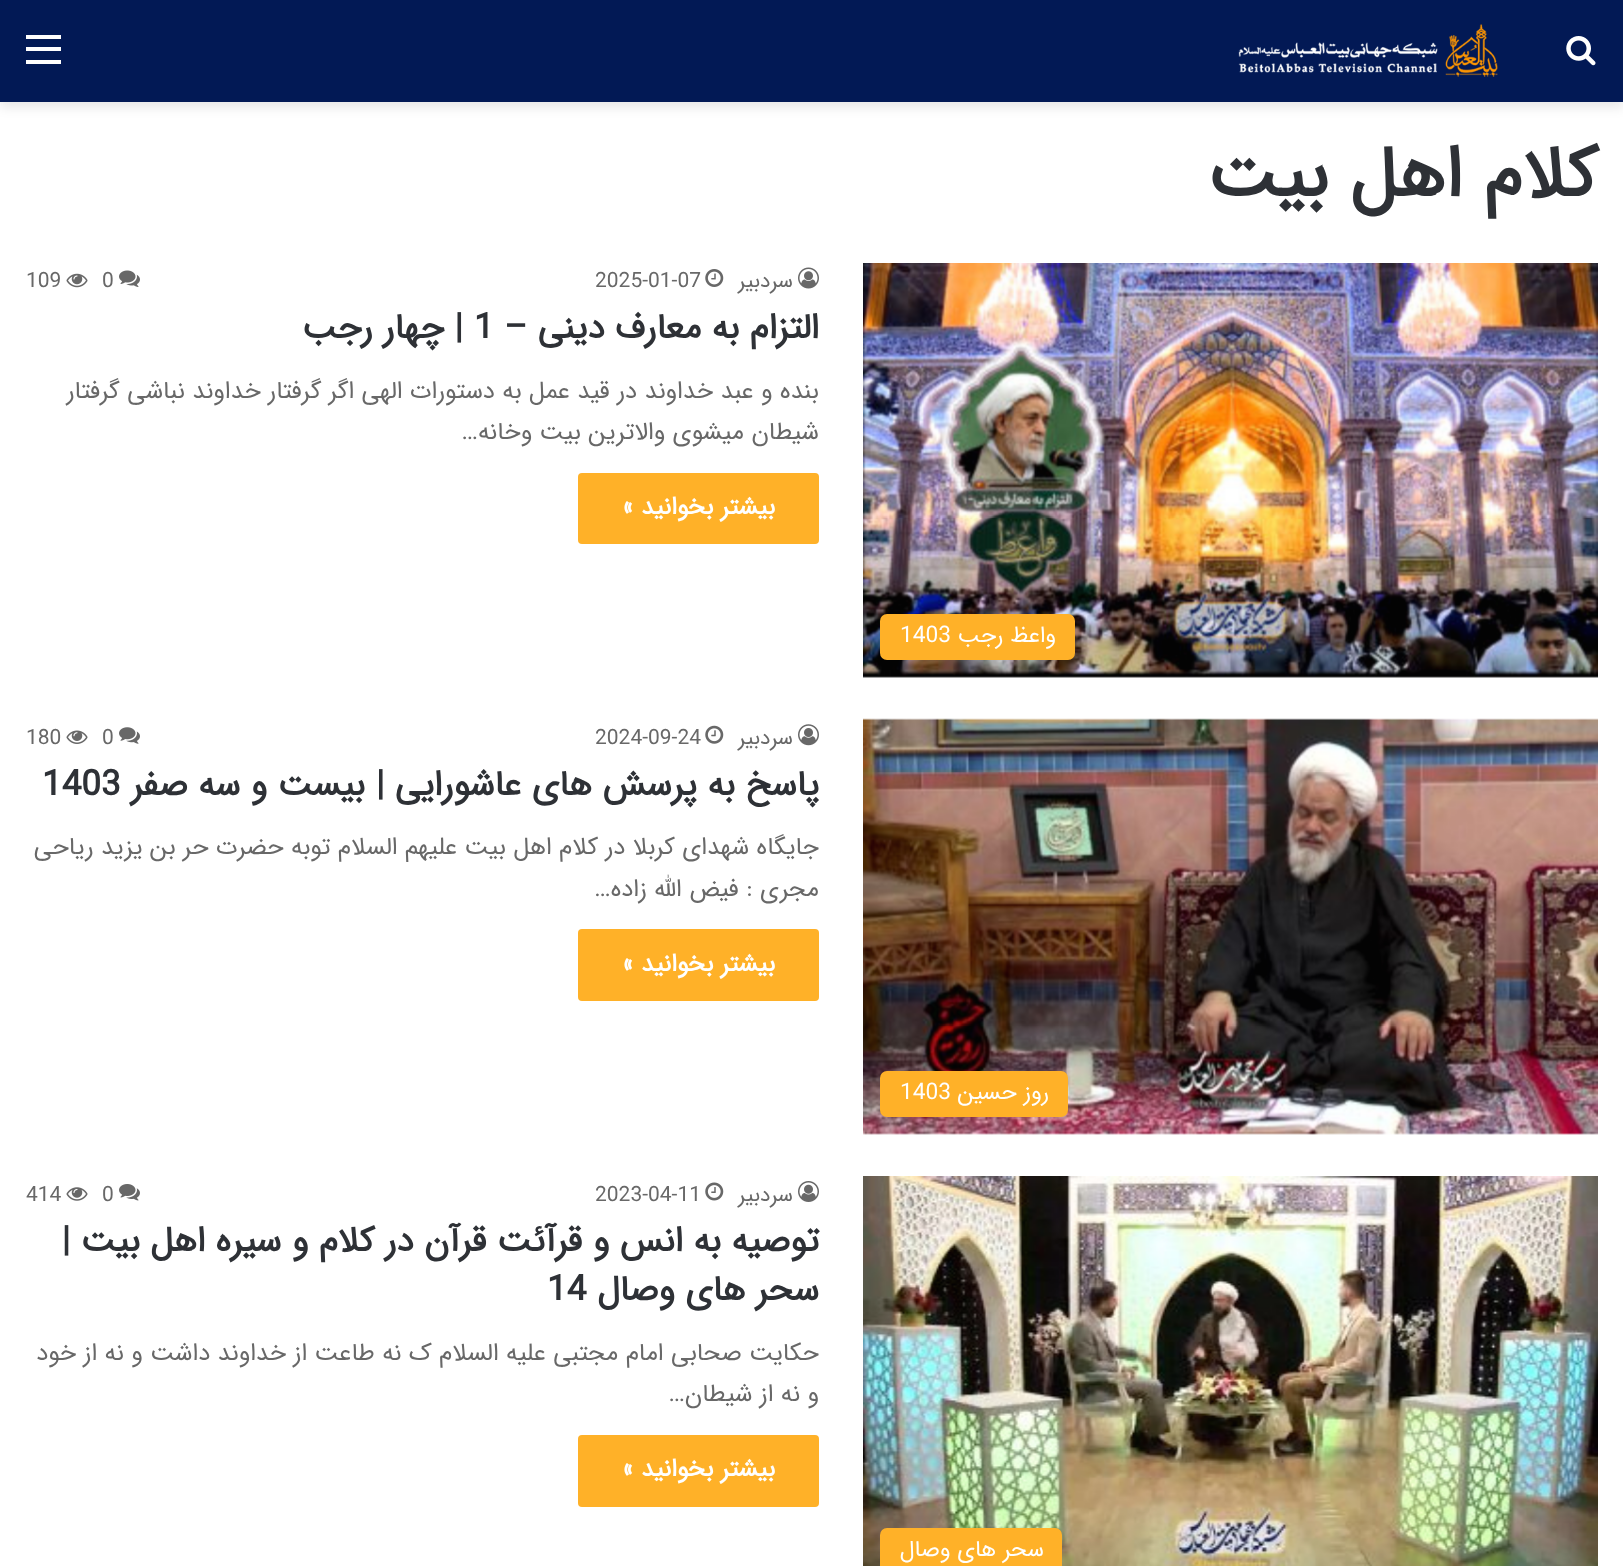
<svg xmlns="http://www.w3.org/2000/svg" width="1623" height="1566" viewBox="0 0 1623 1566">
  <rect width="100%" height="100%" fill="#fff"/>
  <path d="M0 5h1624v102H0z" fill="#0000001a" filter="blur(6px)"/>
  <path d="M0 0h1623v102H0z" fill="#021955"/>
  <image x="1566" y="36" width="30" height="30" href="img/1.png"/>
  <image x="1238" y="24" width="260" height="53" href="img/2.png"/>
  <path d="M26 47h35v4H26z" fill="#fff"/>
  <path d="M26 35h35v4H26z" fill="#fff"/>
  <path d="M26 60h35v4H26z" fill="#fff"/>
  <image x="798" y="267" width="21" height="22" href="img/3.png"/>
  <image x="705" y="269" width="19" height="18" href="img/4.png"/>
  <image x="119" y="270" width="21" height="17" href="img/5.png"/>
  <image x="66" y="273" width="22" height="15" href="img/6.png"/>
  <rect x="578" y="473" width="241" height="71" rx="4" fill="#ffb128"/>
  <image x="863" y="263" width="735" height="415" href="img/7.png"/>
  <rect x="880" y="614" width="195" height="46" rx="7" fill="#ffb128"/>
  <image x="798" y="724" width="21" height="22" href="img/8.png"/>
  <image x="705" y="725" width="19" height="19" href="img/9.png"/>
  <image x="119" y="727" width="21" height="17" href="img/10.png"/>
  <image x="66" y="730" width="22" height="14" href="img/11.png"/>
  <rect x="578" y="929" width="241" height="72" rx="4" fill="#ffb128"/>
  <image x="863" y="718" width="735" height="417" href="img/12.png"/>
  <rect x="880" y="1071" width="188" height="46" rx="7" fill="#ffb128"/>
  <image x="798" y="1181" width="21" height="21" href="img/13.png"/>
  <image x="705" y="1182" width="19" height="19" href="img/14.png"/>
  <image x="119" y="1184" width="21" height="17" href="img/15.png"/>
  <image x="66" y="1187" width="22" height="14" href="img/16.png"/>
  <rect x="578" y="1435" width="241" height="72" rx="4" fill="#ffb128"/>
  <image x="863" y="1176" width="735" height="390" href="img/17.png"/>
  <rect x="880" y="1528" width="182" height="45" rx="7" fill="#ffb128"/>
  <text x="1598" y="196" font-family="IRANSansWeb" font-size="71.75" font-weight="bold" direction="rtl" fill="#2e3136">کلام اهل بیت</text>
  <text x="793" y="287" font-family="IRANSansWeb" font-size="21" direction="rtl" fill="#686868">سردبیر</text>
  <g font-family="IRANSansWeb" font-size="21" fill="#686868">
    <text x="595" y="287">2025-01-07</text>
    <text x="102" y="287">0</text>
    <text x="26" y="287">109</text>
  </g>
  <text x="819" y="338" font-family="IRANSansWeb" font-size="35" font-weight="bold" direction="rtl" fill="#2e3136">التزام به معارف دینی –</text>
  <text x="474" y="338" font-family="IRANSansWeb" font-size="35" font-weight="bold" fill="#2e3136">1</text>
  <text x="463" y="338" font-family="IRANSansWeb" font-size="35" font-weight="bold" direction="rtl" fill="#2e3136">| چهار رجب</text>
  <g font-family="IRANSansWeb" font-size="24.5" direction="rtl" fill="#686868">
    <text x="819" y="398">بنده و عبد خداوند در قید عمل به دستورات الهی اگر گرفتار خداوند نباشی گرفتار</text>
    <text x="819" y="439">شیطان میشوی والاترین بیت وخانه…</text>
  </g>
  <text x="775" y="514" font-family="IRANSansWeb" font-size="24.5" font-weight="bold" direction="rtl" fill="#fff">بیشتر بخوانید »</text>
  <text x="1056" y="642" font-family="IRANSansWeb" font-size="22.75" direction="rtl" fill="#fff">واعظ رجب</text>
  <text x="900" y="642" font-family="IRANSansWeb" font-size="22.75" fill="#fff">1403</text>
  <text x="793" y="744" font-family="IRANSansWeb" font-size="21" direction="rtl" fill="#686868">سردبیر</text>
  <g font-family="IRANSansWeb" font-size="21" fill="#686868">
    <text x="595" y="744">2024-09-24</text>
    <text x="102" y="744">0</text>
    <text x="26" y="744">180</text>
  </g>
  <g font-family="IRANSansWeb" font-size="35" font-weight="bold" direction="rtl" fill="#2e3136">
    <text x="819" y="795">پاسخ به پرسش های عاشورایی |</text>
    <text x="365" y="795">بیست و سه صفر</text>
  </g>
  <text x="42" y="795" font-family="IRANSansWeb" font-size="35" font-weight="bold" fill="#2e3136">1403</text>
  <g font-family="IRANSansWeb" font-size="24.5" direction="rtl" fill="#686868">
    <text x="819" y="854">جایگاه شهدای کربلا در کلام اهل بیت علیهم السلام توبه حضرت حر بن یزید ریاحی</text>
    <text x="819" y="896">مجری : فیض الله زاده…</text>
  </g>
  <text x="775" y="971" font-family="IRANSansWeb" font-size="24.5" font-weight="bold" direction="rtl" fill="#fff">بیشتر بخوانید »</text>
  <text x="1049" y="1099" font-family="IRANSansWeb" font-size="22.75" direction="rtl" fill="#fff">روز حسین</text>
  <text x="900" y="1099" font-family="IRANSansWeb" font-size="22.75" fill="#fff">1403</text>
  <text x="793" y="1201" font-family="IRANSansWeb" font-size="21" direction="rtl" fill="#686868">سردبیر</text>
  <g font-family="IRANSansWeb" font-size="21" fill="#686868">
    <text x="595" y="1201">2023-04-11</text>
    <text x="102" y="1201">0</text>
    <text x="26" y="1201">414</text>
  </g>
  <g font-family="IRANSansWeb" font-size="35" font-weight="bold" direction="rtl" fill="#2e3136">
    <text x="819" y="1251">توصیه به انس و قرآئت قرآن در کلام و سیره اهل بیت |</text>
    <text x="819" y="1300">سحر های وصال</text>
  </g>
  <text x="547" y="1300" font-family="IRANSansWeb" font-size="35" font-weight="bold" fill="#2e3136">14</text>
  <g font-family="IRANSansWeb" font-size="24.5" direction="rtl" fill="#686868">
    <text x="819" y="1360">حکایت صحابی امام مجتبی علیه السلام ک نه طاعت از خداوند داشت و نه از خود</text>
    <text x="819" y="1401">و نه از شیطان…</text>
  </g>
  <text x="775" y="1476" font-family="IRANSansWeb" font-size="24.5" font-weight="bold" direction="rtl" fill="#fff">بیشتر بخوانید »</text>
  <text x="1044" y="1556" font-family="IRANSansWeb" font-size="22.75" direction="rtl" fill="#fff">سحر های وصال</text>
</svg>
